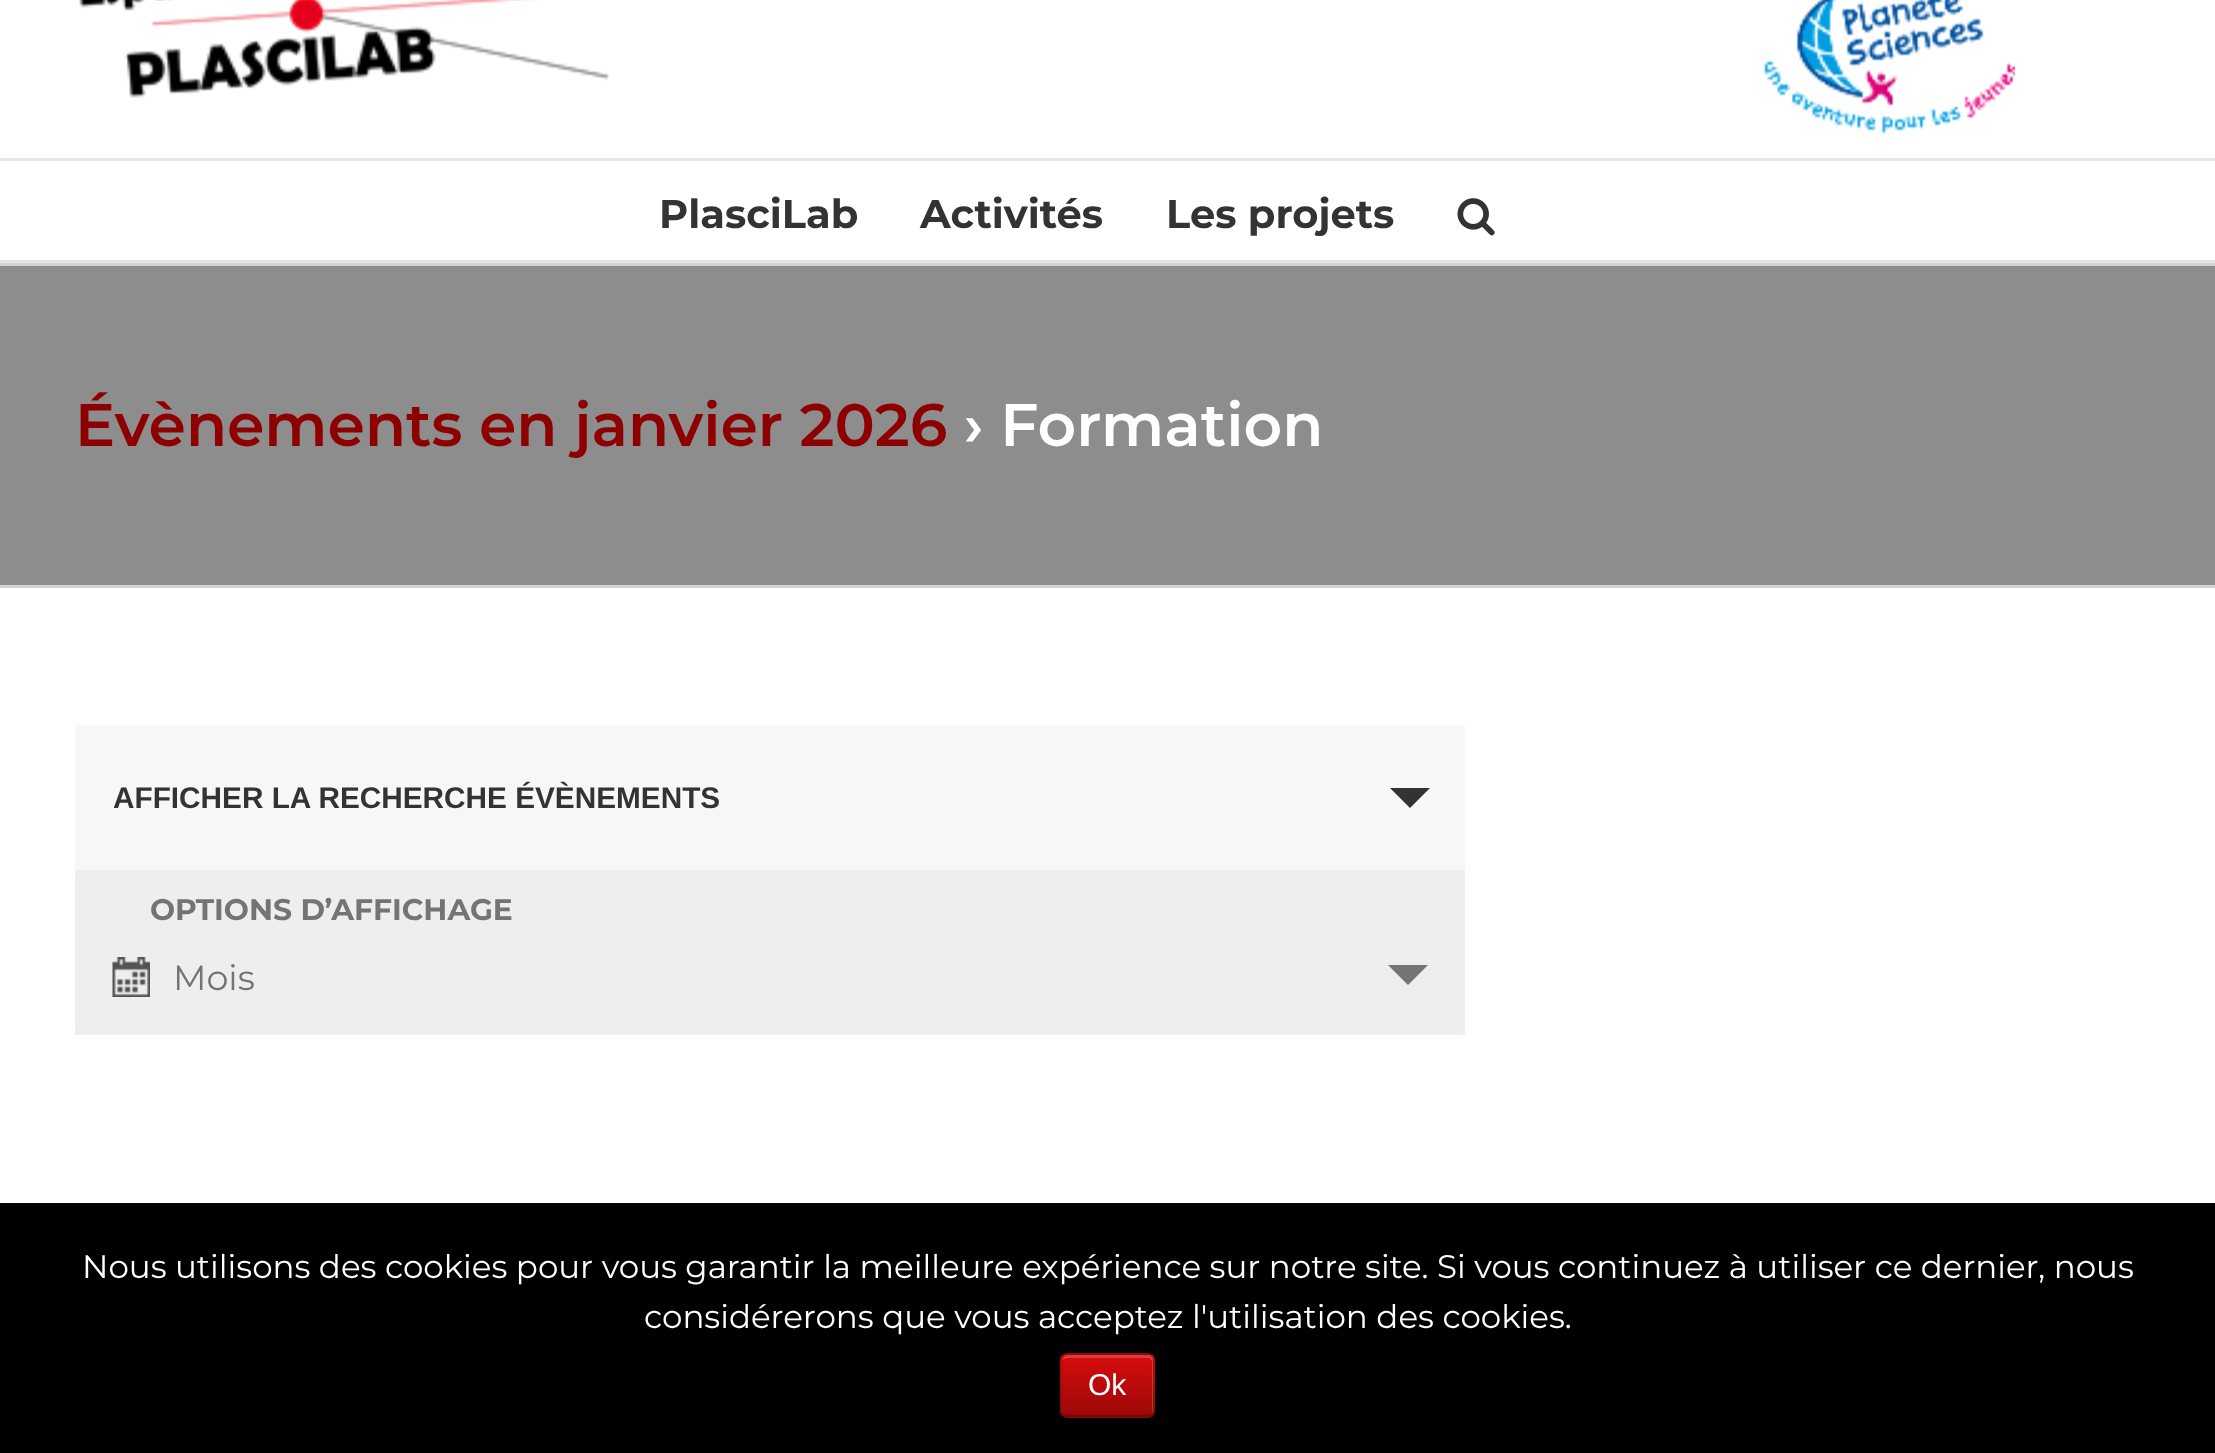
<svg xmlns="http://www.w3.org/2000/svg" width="2215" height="1453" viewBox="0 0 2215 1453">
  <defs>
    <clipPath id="clip1"><rect x="1060" y="1353" width="95" height="65" rx="8"/></clipPath>
    <linearGradient id="g1" gradientUnits="userSpaceOnUse" x1="1108" y1="1355" x2="1108" y2="1415"><stop offset="0" stop-color="#d60c0c"/><stop offset="1" stop-color="#9e0909"/></linearGradient>
  </defs>
  <rect width="100%" height="100%" fill="#fff"/>
  <path d="M0 158h2215v3H0z" fill="#e5e5e5"/>
  <image x="79" y="0" width="531" height="98" href="img/1.png"/>
  <image x="1764" y="0" width="251" height="133" href="img/2.png"/>
  <path d="M0 260h2215v3H0z" fill="#e5e5e5"/>
  <image x="1457" y="198" width="38" height="38" href="img/3.png"/>
  <path d="M0 266h2215v319H0z" fill="#8d8d8d"/>
  <path d="M0 263h2215v3H0z" fill="#d2d3d4"/>
  <path d="M0 585h2215v3H0z" fill="#d2d3d4"/>
  <path d="M75 725h1390v145H75z" fill="#f8f7f7"/>
  <path d="M1390 788H1430L1410 808Z" fill="#333"/>
  <path d="M75 870h1390v165H75z" fill="#efeded"/>
  <image x="112" y="957" width="38" height="40" href="img/4.png"/>
  <path d="M1388 965H1428L1408 985Z" fill="#747474"/>
  <path d="M0 1203h2215v250H0z" fill="#000"/>
  <rect x="1060" y="1353" width="95" height="65" rx="8" fill="#9e0909"/>
  <g clip-path="url(#clip1)">
    <path d="M1060 1355h95v60H1060z" fill="url(#g1)"/>
  </g>
  <path d="M1068 1358H1135C1156 1358 1152 1356 1152 1379V1413C1153 1412 1153 1411 1153 1410V1360C1153 1357 1151 1355 1148 1355H1068C1065 1355 1063 1357 1063 1360C1064 1359 1066 1358 1068 1358Z" fill="#ffffff33"/>
  <path d="M1152 1414.5C1150.5 1415.5 1149 1416 1147.5 1416H1067.5C1066 1416 1064.5 1415.5 1063 1414.5" fill="none" stroke="#760707" stroke-width="2.5"/>
  <path d="M1063 1414.5C1062 1413 1061 1411.5 1061 1410V1360C1061 1358.5 1062 1357 1063 1355.5C1064.5 1354.5 1066 1354 1067.5 1354H1147.5C1149 1354 1150.5 1354.5 1152 1355.5C1153 1357 1154 1358.5 1154 1360V1410C1154 1411.5 1153 1413 1152 1414.5" fill="none" stroke="#0000001a" stroke-width="2.5"/>
  <g font-family="'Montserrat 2'" font-size="40" font-weight="100" fill="#333">
    <text x="659" y="228">PlasciLab</text>
    <text x="920" y="228">Activités</text>
    <text x="1166" y="228">Les projets</text>
  </g>
  <text x="75" y="446" font-family="Montserrat" font-size="60" font-weight="100" fill="#8e0000">Évènements en janvier 2026</text>
  <text x="964" y="446" font-family="Montserrat" font-size="60" font-weight="100" fill="#fff">› Formation</text>
  <text x="113" y="808" font-family="Liberation Sans" font-size="29.75" font-weight="bold" fill="#333">AFFICHER LA RECHERCHE ÉVÈNEMENTS</text>
  <text x="150" y="920" font-family="'Montserrat 2'" font-size="29.75" font-weight="100" fill="#747474">OPTIONS D’AFFICHAGE</text>
  <text x="173" y="990" font-family="'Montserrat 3'" font-size="35" font-weight="100" fill="#747474">Mois</text>
  <g font-family="'Montserrat 3'" font-size="32.5" font-weight="100" fill="#fff">
    <text x="82" y="1278">Nous utilisons des cookies pour vous garantir la meilleure expérience sur notre site. Si vous continuez à utiliser ce dernier, nous</text>
    <text x="644" y="1328">considérerons que vous acceptez l'utilisation des cookies.</text>
  </g>
  <text x="1088" y="1395" font-family="Liberation Sans" font-size="30" fill="#fff">Ok</text>
</svg>
